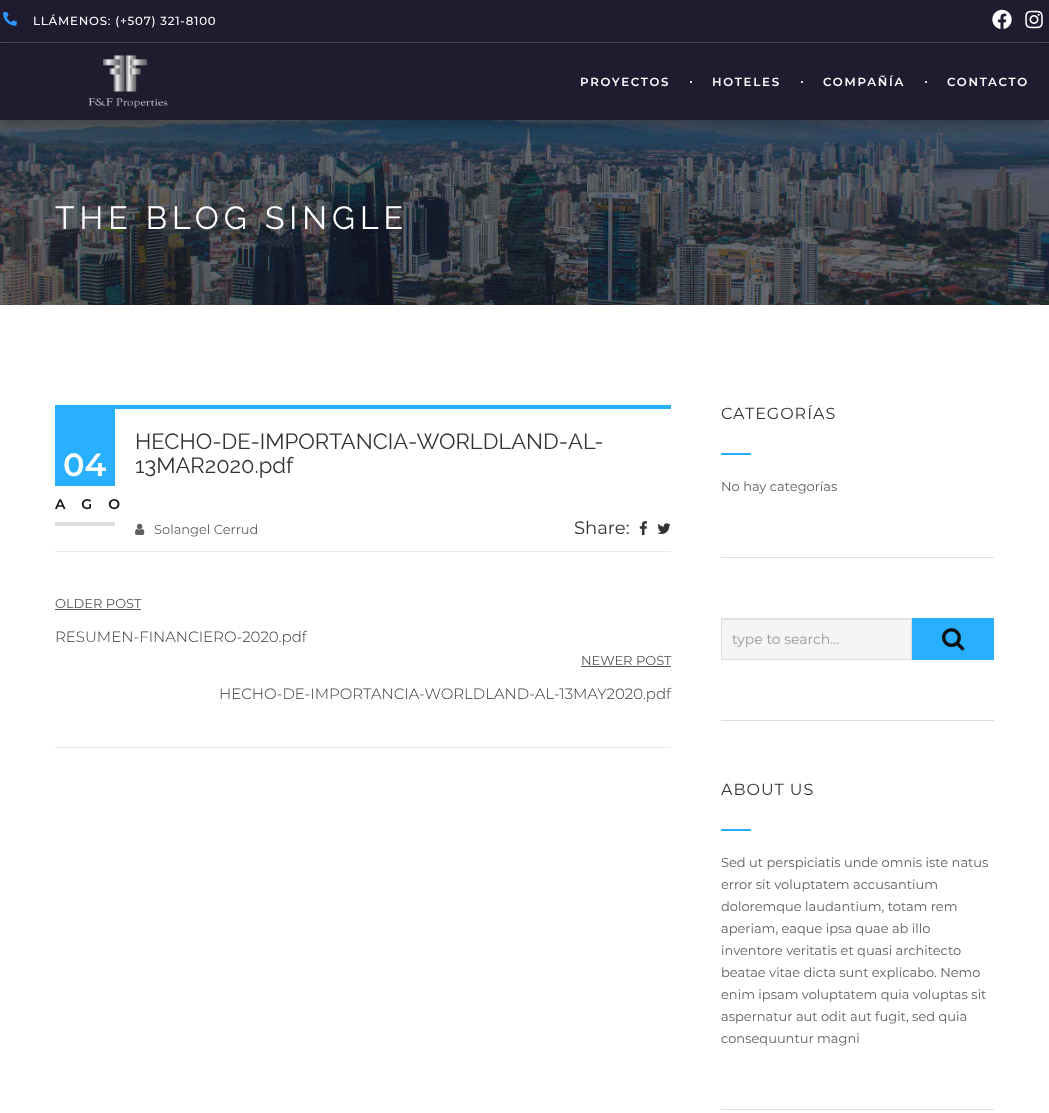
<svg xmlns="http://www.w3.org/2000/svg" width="1049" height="1113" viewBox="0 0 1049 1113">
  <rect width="100%" height="100%" fill="#fff"/>
  <path d="M0 0h1049v42H0z" fill="#1e1c2e"/>
  <path d="M0 42h1049v1H0z" fill="#4c4a57"/>
  <image x="3" y="12" width="14" height="14" href="img/1.png"/>
  <image x="992" y="9" width="20" height="20" href="img/2.png"/>
  <image x="1025" y="10" width="18" height="19" href="img/3.png"/>
  <image x="0" y="120" width="1049" height="185" href="img/5.png"/>
  <path d="M0 49h1049v77H0z" fill="#00000040" filter="blur(6px)"/>
  <path d="M0 43h1049v77H0z" fill="#1e1c2e"/>
  <image x="88" y="55" width="80" height="53" href="img/4.png"/>
  <path d="M690 81h2v2H690z" fill="#e3e3e3"/>
  <path d="M801 81h2v2H801z" fill="#e3e3e3"/>
  <path d="M925 81h2v2H925z" fill="#e3e3e3"/>
  <path d="M55 405h616v4H55z" fill="#28b0ff"/>
  <path d="M55 409h60v77H55z" fill="#28b0ff"/>
  <path d="M55 522h60v4H55z" fill="#ddd"/>
  <image x="135" y="523" width="10" height="12" href="img/6.png"/>
  <image x="639" y="521" width="9" height="15" href="img/7.png"/>
  <image x="657" y="523" width="14" height="11" href="img/8.png"/>
  <path d="M55 551h616v1H55z" fill="#e8eaec"/>
  <path d="M55 747h616v1H55z" fill="#e8eaec"/>
  <path d="M55 609h86v1H55z" fill="#555"/>
  <path d="M581 666h90v1H581z" fill="#555"/>
  <path d="M721 557h273v1H721z" fill="#ddd"/>
  <path d="M721 453h30v2H721z" fill="#28b0ff"/>
  <path d="M721 720h273v1H721z" fill="#ddd"/>
  <path d="M722 620h189v39H722z" fill="#f5f5f5"/>
  <path d="M722 619h189v1H722z" fill="#e3e3e3"/>
  <path d="M721.5 618.5h190v41H721.5z" fill="none" stroke="#ddd"/>
  <path d="M912 618h82v42H912z" fill="#28b0ff"/>
  <image x="942" y="628" width="23" height="23" href="img/9.png"/>
  <path d="M721 1109h273v1H721z" fill="#ddd"/>
  <path d="M721 829h30v2H721z" fill="#28b0ff"/>
  <text x="33" y="25" font-family="Montserrat" font-size="11.75" font-weight="500" letter-spacing="0.8" fill="#fff">LLÁMENOS: (+507) 321-8100</text>
  <g font-family="Montserrat" font-size="11.75" font-weight="600" letter-spacing="1.75" fill="#fff">
    <text x="580" y="86">PROYECTOS</text>
    <text x="712" y="86">HOTELES</text>
    <text x="823" y="86">COMPAÑÍA</text>
    <text x="947" y="86">CONTACTO</text>
  </g>
  <text x="55" y="229" font-family="Raleway" font-size="32" letter-spacing="5" fill="#fff">THE BLOG SINGLE</text>
  <text x="63" y="476" font-family="Montserrat" font-size="32" font-weight="600" fill="#fff">04</text>
  <text x="55" y="509" font-family="Montserrat" font-size="14" font-weight="600" letter-spacing="16" fill="#111">AGO</text>
  <g font-family="Raleway" font-size="22" fill="#333">
    <text x="135" y="449">HECHO-DE-IMPORTANCIA-WORLDLAND-AL-</text>
    <text x="135" y="473">13MAR2020.pdf</text>
  </g>
  <text x="154" y="534" font-family="Montserrat" font-size="13" fill="#606060">Solangel Cerrud</text>
  <text x="574" y="534" font-family="Montserrat" font-size="18" fill="#333">Share:</text>
  <text x="55" y="608" font-family="Montserrat" font-size="13" fill="#555">OLDER POST</text>
  <text x="55" y="642" font-family="Montserrat" font-size="15" font-weight="300" fill="#333">RESUMEN-FINANCIERO-2020.pdf</text>
  <text x="581" y="665" font-family="Montserrat" font-size="13" fill="#555">NEWER POST</text>
  <text x="219" y="699" font-family="Montserrat" font-size="15" font-weight="300" fill="#333">HECHO-DE-IMPORTANCIA-WORLDLAND-AL-13MAY2020.pdf</text>
  <text x="721" y="419" font-family="Montserrat" font-size="16" letter-spacing="1" fill="#333">CATEGORÍAS</text>
  <text x="721" y="491" font-family="Montserrat" font-size="13" fill="#606060">No hay categorías</text>
  <text x="732" y="644" font-family="Montserrat" font-size="14" fill="#999">type to search…</text>
  <text x="721" y="795" font-family="Montserrat" font-size="16" letter-spacing="1" fill="#333">ABOUT US</text>
  <g font-family="Montserrat" font-size="13" fill="#606060">
    <text x="721" y="867">Sed ut perspiciatis unde omnis iste natus</text>
    <text x="721" y="889">error sit voluptatem accusantium</text>
    <text x="721" y="911">doloremque laudantium, totam rem</text>
    <text x="721" y="933">aperiam, eaque ipsa quae ab illo</text>
    <text x="721" y="955">inventore veritatis et quasi architecto</text>
    <text x="721" y="977">beatae vitae dicta sunt explicabo. Nemo</text>
    <text x="721" y="999">enim ipsam voluptatem quia voluptas sit</text>
    <text x="721" y="1021">aspernatur aut odit aut fugit, sed quia</text>
    <text x="721" y="1043">consequuntur magni</text>
  </g>
</svg>
